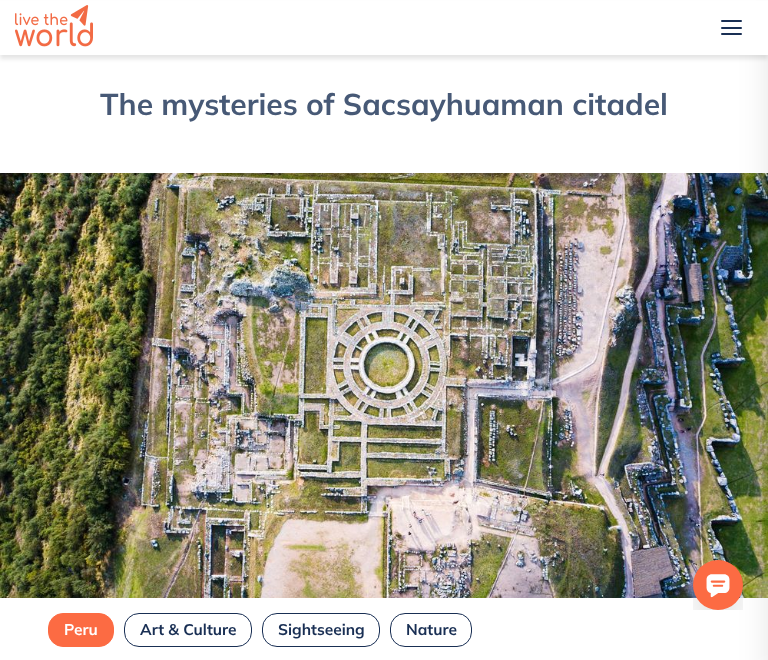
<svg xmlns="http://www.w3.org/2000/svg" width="768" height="660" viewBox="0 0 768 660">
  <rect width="100%" height="100%" fill="#fff"/>
  <path d="M0 4h768v55H0z" fill="#0000001a" filter="blur(2px)"/>
  <image x="0" y="173" width="768" height="425" href="img/2.png"/>
  <path d="M768 20h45v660H768z" fill="#0000001a" filter="blur(15px)"/>
  <path d="M0 1h768v54H0z" fill="#fff"/>
  <image x="15" y="5" width="78" height="42" href="img/1.png"/>
  <rect x="721" y="20" width="21" height="2" rx="1" fill="#192f54"/>
  <rect x="721" y="27" width="21" height="2" rx="1" fill="#192f54"/>
  <rect x="721" y="33" width="21" height="2" rx="1" fill="#192f54"/>
  <image x="693" y="560" width="50" height="50" href="img/3.png"/>
  <rect x="48.5" y="613.5" width="65" height="33" rx="14.5" fill="#fc6b43" stroke="#fc6b43"/>
  <rect x="124.5" y="613.5" width="127" height="33" rx="14.5" fill="none" stroke="#192f54"/>
  <rect x="262.5" y="613.5" width="117" height="33" rx="14.5" fill="none" stroke="#192f54"/>
  <rect x="390.5" y="613.5" width="81" height="33" rx="14.5" fill="none" stroke="#192f54"/>
  <text x="100" y="115" font-family="Mulish" font-size="30" font-weight="bold" fill="#475976">The mysteries of Sacsayhuaman citadel</text>
  <text x="64" y="635" font-family="Mulish" font-size="15.5" font-weight="bold" fill="#fff">Peru</text>
  <g font-family="Mulish" font-size="15.5" font-weight="bold" fill="#192f54">
    <text x="140" y="635">Art &amp; Culture</text>
    <text x="278" y="635">Sightseeing</text>
    <text x="406" y="635">Nature</text>
  </g>
</svg>
